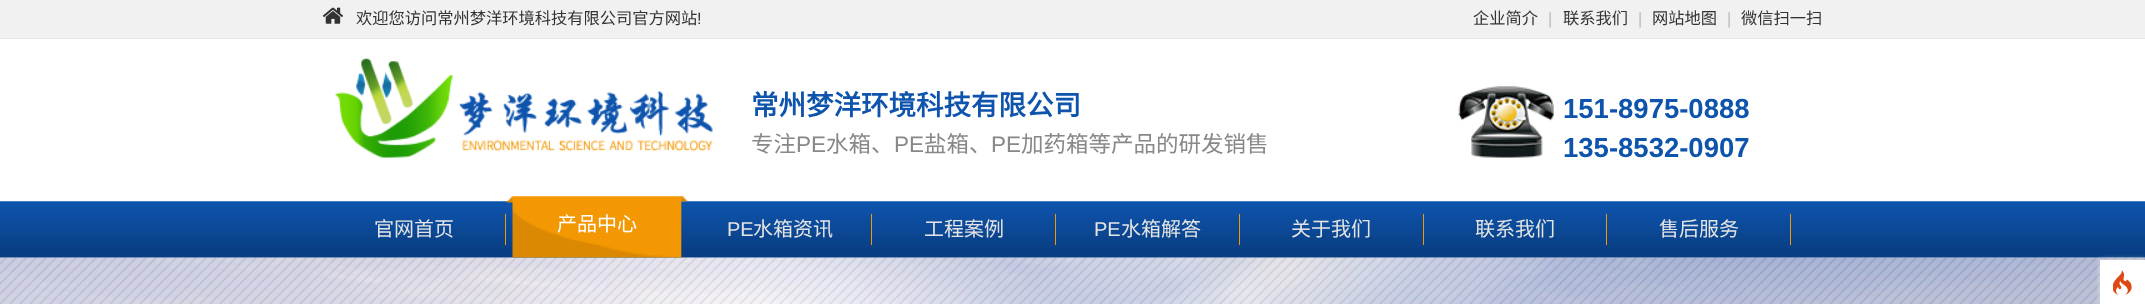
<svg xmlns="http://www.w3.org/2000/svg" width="2145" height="304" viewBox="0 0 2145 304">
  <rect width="100%" height="100%" fill="#fff"/>
  <path d="M0 0h2145v38H0z" fill="#f1f1f1"/>
  <image x="322" y="7" width="21" height="17" href="img/1.png"/>
  <path d="M0 38h2145v1H0z" fill="#e7e7e7"/>
  <image x="334" y="58" width="379" height="100" href="img/2.png"/>
  <image x="1458" y="86" width="96" height="72" href="img/3.png"/>
  <image x="0" y="257" width="2145" height="47" href="img/7.png"/>
  <image x="0" y="201" width="2145" height="57" href="img/4.png"/>
  <path d="M505 214h1v31H505z" fill="#f39802"/>
  <image x="506" y="196" width="182" height="62" href="img/5.png"/>
  <path d="M871 214h1v31H871z" fill="#f39802"/>
  <path d="M1055 214h1v31H1055z" fill="#f39802"/>
  <path d="M1239 214h1v31H1239z" fill="#f39802"/>
  <path d="M1423 214h1v31H1423z" fill="#f39802"/>
  <path d="M1606 214h1v31H1606z" fill="#f39802"/>
  <path d="M1790 214h1v31H1790z" fill="#f39802"/>
  <path d="M2100 260h45v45H2100z" fill="#dfdfdf" filter="blur(2.5px)"/>
  <path d="M2100 260h45v44H2100z" fill="#fff"/>
  <image x="2113" y="270" width="19" height="25" href="img/6.png"/>
  <text x="356" y="24" font-family="Noto Sans CJK SC" font-size="16.25" fill="#333">欢迎您访问常州梦洋环境科技有限公司官方网站</text>
  <text x="697" y="24" font-family="Liberation Sans" font-size="16.25" fill="#333">!</text>
  <text x="1473" y="24" font-family="Noto Sans CJK SC" font-size="16.25" fill="#333">企业简介</text>
  <text x="1548" y="24" font-family="Liberation Sans" font-size="16.25" fill="#bbb">|</text>
  <text x="1563" y="24" font-family="Noto Sans CJK SC" font-size="16.25" fill="#333">联系我们</text>
  <text x="1638" y="24" font-family="Liberation Sans" font-size="16.25" fill="#bbb">|</text>
  <text x="1652" y="24" font-family="Noto Sans CJK SC" font-size="16.25" fill="#333">网站地图</text>
  <text x="1727" y="24" font-family="Liberation Sans" font-size="16.25" fill="#bbb">|</text>
  <text x="1741" y="24" font-family="Noto Sans CJK SC" font-size="16.25" fill="#333">微信扫一扫</text>
  <text x="751" y="115" font-family="Noto Sans CJK SC" font-size="27.5" font-weight="bold" fill="#0e54ad">常州梦洋环境科技有限公司</text>
  <text x="751" y="152" font-family="Noto Sans CJK SC" font-size="22.5" fill="#888">专注</text>
  <text x="796" y="152" font-family="Liberation Sans" font-size="22.5" fill="#888">PE</text>
  <text x="826" y="152" font-family="Noto Sans CJK SC" font-size="22.5" fill="#888">水箱、</text>
  <text x="894" y="152" font-family="Liberation Sans" font-size="22.5" fill="#888">PE</text>
  <text x="924" y="152" font-family="Noto Sans CJK SC" font-size="22.5" fill="#888">盐箱、</text>
  <text x="991" y="152" font-family="Liberation Sans" font-size="22.5" fill="#888">PE</text>
  <text x="1021" y="152" font-family="Noto Sans CJK SC" font-size="22.5" fill="#888">加药箱等产品的研发销售</text>
  <g font-family="Liberation Sans" font-size="27.5" font-weight="bold" fill="#0e54ad">
    <text x="1563" y="118">151-8975-0888</text>
    <text x="1563" y="157">135-8532-0907</text>
  </g>
  <text x="374" y="236" font-family="Noto Sans CJK SC" font-size="20" fill="#e4e4e4">官网首页</text>
  <text x="557" y="231" font-family="Noto Sans CJK SC" font-size="20" fill="#fff">产品中心</text>
  <text x="727" y="236" font-family="Liberation Sans" font-size="20" fill="#e4e4e4">PE</text>
  <g font-family="Noto Sans CJK SC" font-size="20" fill="#e4e4e4">
    <text x="753" y="236">水箱资讯</text>
    <text x="924" y="236">工程案例</text>
  </g>
  <text x="1094" y="236" font-family="Liberation Sans" font-size="20" fill="#e4e4e4">PE</text>
  <g font-family="Noto Sans CJK SC" font-size="20" fill="#e4e4e4">
    <text x="1121" y="236">水箱解答</text>
    <text x="1291" y="236">关于我们</text>
    <text x="1475" y="236">联系我们</text>
    <text x="1659" y="236">售后服务</text>
  </g>
</svg>
